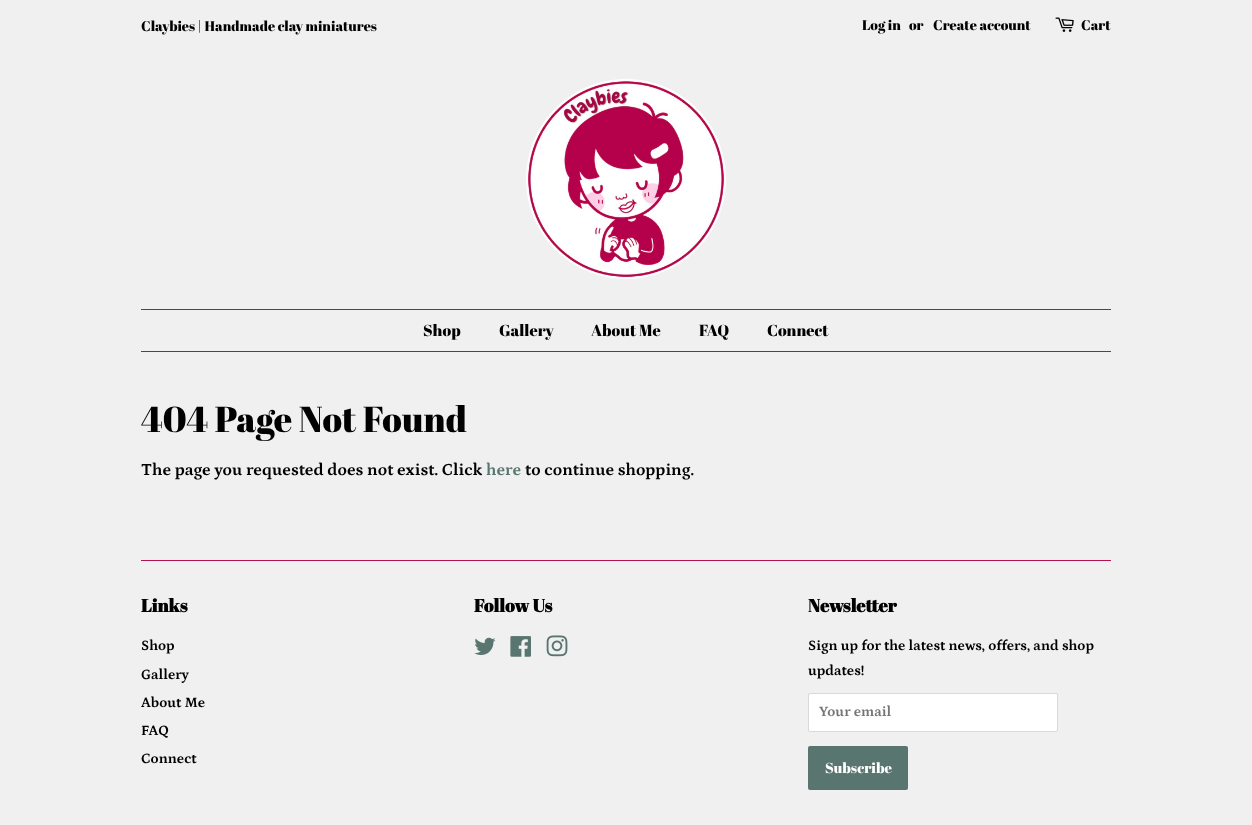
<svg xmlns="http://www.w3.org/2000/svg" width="1252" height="825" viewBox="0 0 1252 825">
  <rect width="100%" height="100%" fill="#f0f0f0"/>
  <image x="1055" y="17" width="19" height="15" href="img/1.png"/>
  <image x="526" y="79" width="200" height="200" href="img/2.png"/>
  <path d="M141 309h970v1H141z" fill="#b21152"/>
  <path d="M141 351h970v1H141z" fill="#b21152"/>
  <path d="M141 560h970v1H141z" fill="#b21152"/>
  <image x="474" y="637" width="22" height="18" href="img/3.png"/>
  <image x="510" y="636" width="21" height="21" href="img/4.png"/>
  <image x="546" y="635" width="22" height="22" href="img/5.png"/>
  <rect x="808.5" y="693.5" width="249" height="38" rx="1.5" fill="#fff" stroke="#d9d9d9"/>
  <rect x="808" y="746" width="100" height="44" rx="2" fill="#59756f"/>
  <g font-family="Abril Fatface" font-size="14" fill="#000">
    <text x="141" y="31">Claybies | Handmade clay miniatures</text>
    <text x="862" y="30">Log in</text>
    <text x="909" y="30">or</text>
    <text x="933" y="30">Create account</text>
    <text x="1081" y="30">Cart</text>
  </g>
  <g font-family="Abril Fatface" font-size="16" fill="#000">
    <text x="423" y="336">Shop</text>
    <text x="499" y="336">Gallery</text>
    <text x="591" y="336">About Me</text>
    <text x="699" y="336">FAQ</text>
    <text x="767" y="336">Connect</text>
  </g>
  <text x="141" y="432" font-family="Abril Fatface" font-size="36" fill="#000">404 Page Not Found</text>
  <text x="141" y="475" font-family="Petrona" font-size="17" font-weight="bold" fill="#000">The page you requested does not exist. Click</text>
  <text x="486" y="475" font-family="Petrona" font-size="17" font-weight="bold" fill="#59756f">here</text>
  <text x="525" y="475" font-family="Petrona" font-size="17" font-weight="bold" fill="#000">to continue shopping.</text>
  <text x="141" y="612" font-family="Abril Fatface" font-size="18" font-weight="bold" fill="#000">Links</text>
  <g font-family="Petrona" font-size="14.5" font-weight="bold" fill="#000">
    <text x="141" y="650">Shop</text>
    <text x="141" y="679">Gallery</text>
    <text x="141" y="707">About Me</text>
    <text x="141" y="735">FAQ</text>
    <text x="141" y="763">Connect</text>
  </g>
  <g font-family="Abril Fatface" font-size="18" font-weight="bold" fill="#000">
    <text x="474" y="612">Follow Us</text>
    <text x="808" y="612">Newsletter</text>
  </g>
  <g font-family="Petrona" font-size="14.5" font-weight="bold" fill="#000">
    <text x="808" y="650">Sign up for the latest news, offers, and shop</text>
    <text x="808" y="675">updates!</text>
  </g>
  <text x="819" y="716" font-family="Petrona" font-size="14.5" font-weight="bold" fill="#757575">Your email</text>
  <text x="825" y="773" font-family="Abril Fatface" font-size="14.5" fill="#fff">Subscribe</text>
</svg>
